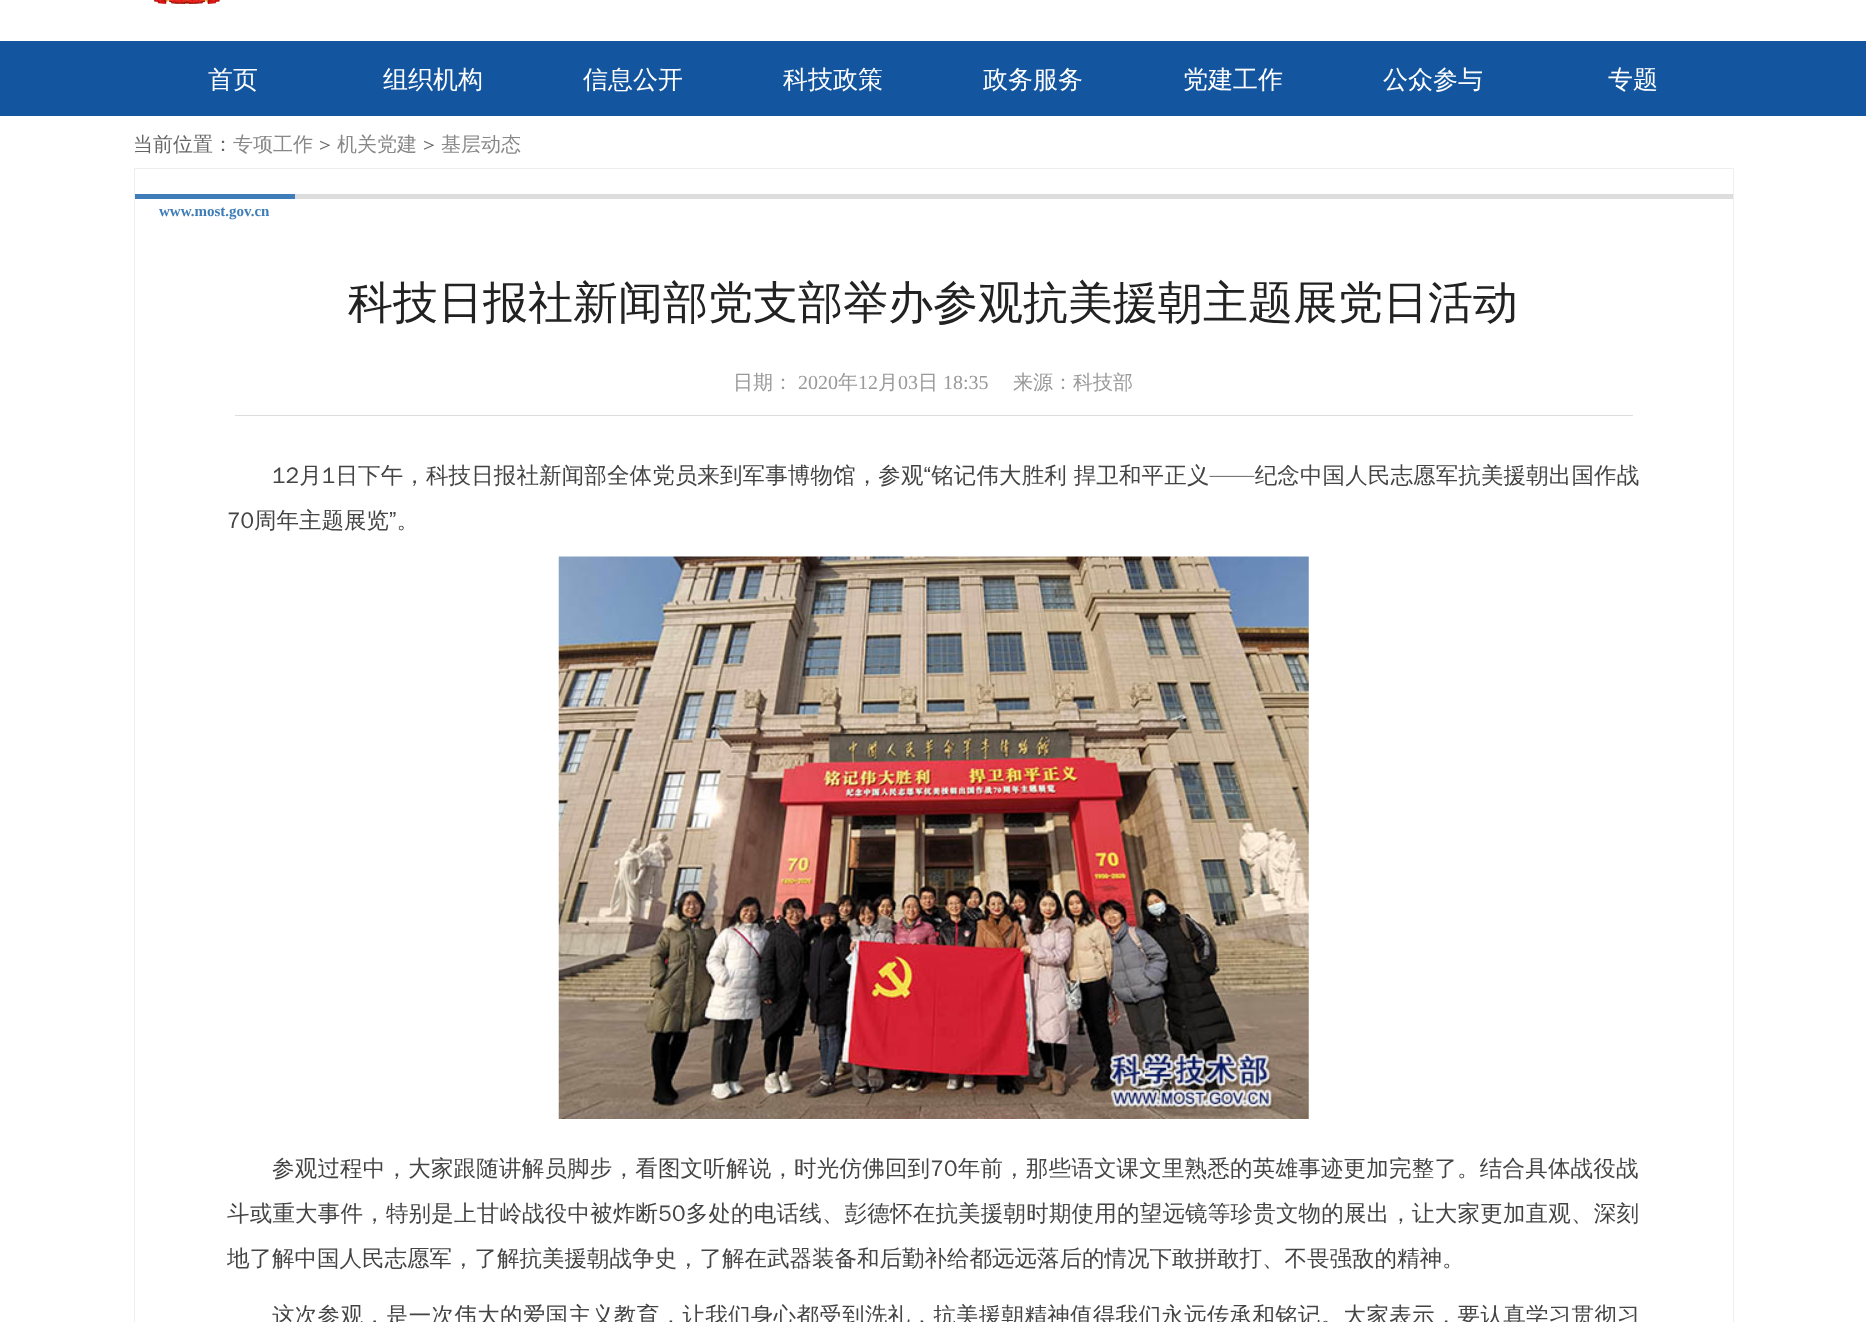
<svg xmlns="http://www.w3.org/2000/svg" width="1866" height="1322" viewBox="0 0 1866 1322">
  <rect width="100%" height="100%" fill="#fff"/>
  <image x="153" y="0" width="67" height="4" href="img/1.png"/>
  <path d="M0 41h1866v75H0z" fill="#13569f"/>
  <path d="M134.5 168.5h1599v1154H134.5z" fill="none" stroke="#eee"/>
  <path d="M295 194h1438v5H295z" fill="#ddd"/>
  <path d="M135 194h160v5H135z" fill="#3e7db7"/>
  <path d="M235 415h1398v1H235z" fill="#ddd"/>
  <image x="558" y="556" width="751" height="563" href="img/2.png"/>
  <g font-family="WenQuanYi Zen Hei" font-size="25" font-weight="500" fill="#fff">
    <text x="208" y="88">首页</text>
    <text x="383" y="88">组织机构</text>
    <text x="583" y="88">信息公开</text>
    <text x="783" y="88">科技政策</text>
    <text x="983" y="88">政务服务</text>
    <text x="1183" y="88">党建工作</text>
    <text x="1383" y="88">公众参与</text>
    <text x="1608" y="88">专题</text>
  </g>
  <text x="133" y="151" font-family="WenQuanYi Zen Hei" font-size="20" font-weight="500" fill="#666">当前位置：</text>
  <text x="233" y="151" font-family="WenQuanYi Zen Hei" font-size="20" font-weight="500" fill="#888">专项工作</text>
  <text x="319" y="151" font-family="WenQuanYi Zen Hei" font-size="20" font-weight="500" fill="#666">&gt;</text>
  <text x="337" y="151" font-family="WenQuanYi Zen Hei" font-size="20" font-weight="500" fill="#888">机关党建</text>
  <text x="423" y="151" font-family="WenQuanYi Zen Hei" font-size="20" font-weight="500" fill="#666">&gt;</text>
  <text x="441" y="151" font-family="WenQuanYi Zen Hei" font-size="20" font-weight="500" fill="#888">基层动态</text>
  <text x="159" y="216" font-family="Liberation Serif" font-size="15" font-weight="bold" fill="#3e7db7">www.most.gov.cn</text>
  <text x="348" y="318" font-family="WenQuanYi Zen Hei" font-size="45" font-weight="500" fill="#222">科技日报社新闻部党支部举办参观抗美援朝主题展党日活动</text>
  <text x="733" y="389" font-family="WenQuanYi Zen Hei" font-size="20" font-weight="500" fill="#999">日期：</text>
  <text x="798" y="389" font-family="Liberation Serif" font-size="20" fill="#999">2020</text>
  <text x="838" y="389" font-family="WenQuanYi Zen Hei" font-size="20" font-weight="500" fill="#999">年</text>
  <text x="858" y="389" font-family="Liberation Serif" font-size="20" fill="#999">12</text>
  <text x="878" y="389" font-family="WenQuanYi Zen Hei" font-size="20" font-weight="500" fill="#999">月</text>
  <text x="898" y="389" font-family="Liberation Serif" font-size="20" fill="#999">03</text>
  <text x="918" y="389" font-family="WenQuanYi Zen Hei" font-size="20" font-weight="500" fill="#999">日</text>
  <text x="943" y="389" font-family="Liberation Serif" font-size="20" fill="#999">18:35</text>
  <text x="1013" y="389" font-family="WenQuanYi Zen Hei" font-size="20" font-weight="500" fill="#999">来源：科技部</text>
  <text x="272" y="483" font-family="WenQuanYi Zen Hei" font-size="22.5" font-weight="500" letter-spacing="0.12" fill="#444">12月1日下午，科技日报社新闻部全体党员来到军事博物馆，参观“铭记伟大胜利 捍卫和平正义——纪念中国人民志愿军抗美援朝出国作战</text>
  <text x="227" y="528" font-family="WenQuanYi Zen Hei" font-size="22.5" font-weight="500" fill="#444">70周年主题展览”。</text>
  <g font-family="WenQuanYi Zen Hei" font-size="22.5" font-weight="500" letter-spacing="0.2" fill="#444">
    <text x="272" y="1176">参观过程中，大家跟随讲解员脚步，看图文听解说，时光仿佛回到70年前，那些语文课文里熟悉的英雄事迹更加完整了。结合具体战役战</text>
    <text x="227" y="1221">斗或重大事件，特别是上甘岭战役中被炸断50多处的电话线、彭德怀在抗美援朝时期使用的望远镜等珍贵文物的展出，让大家更加直观、深刻</text>
  </g>
  <text x="227" y="1266" font-family="WenQuanYi Zen Hei" font-size="22.5" font-weight="500" fill="#444">地了解中国人民志愿军，了解抗美援朝战争史，了解在武器装备和后勤补给都远远落后的情况下敢拼敢打、不畏强敌的精神。</text>
  <text x="272" y="1323" font-family="WenQuanYi Zen Hei" font-size="22.5" font-weight="500" letter-spacing="0.3" fill="#444">这次参观，是一次伟大的爱国主义教育，让我们身心都受到洗礼，抗美援朝精神值得我们永远传承和铭记。大家表示，要认真学习贯彻习</text>
</svg>
